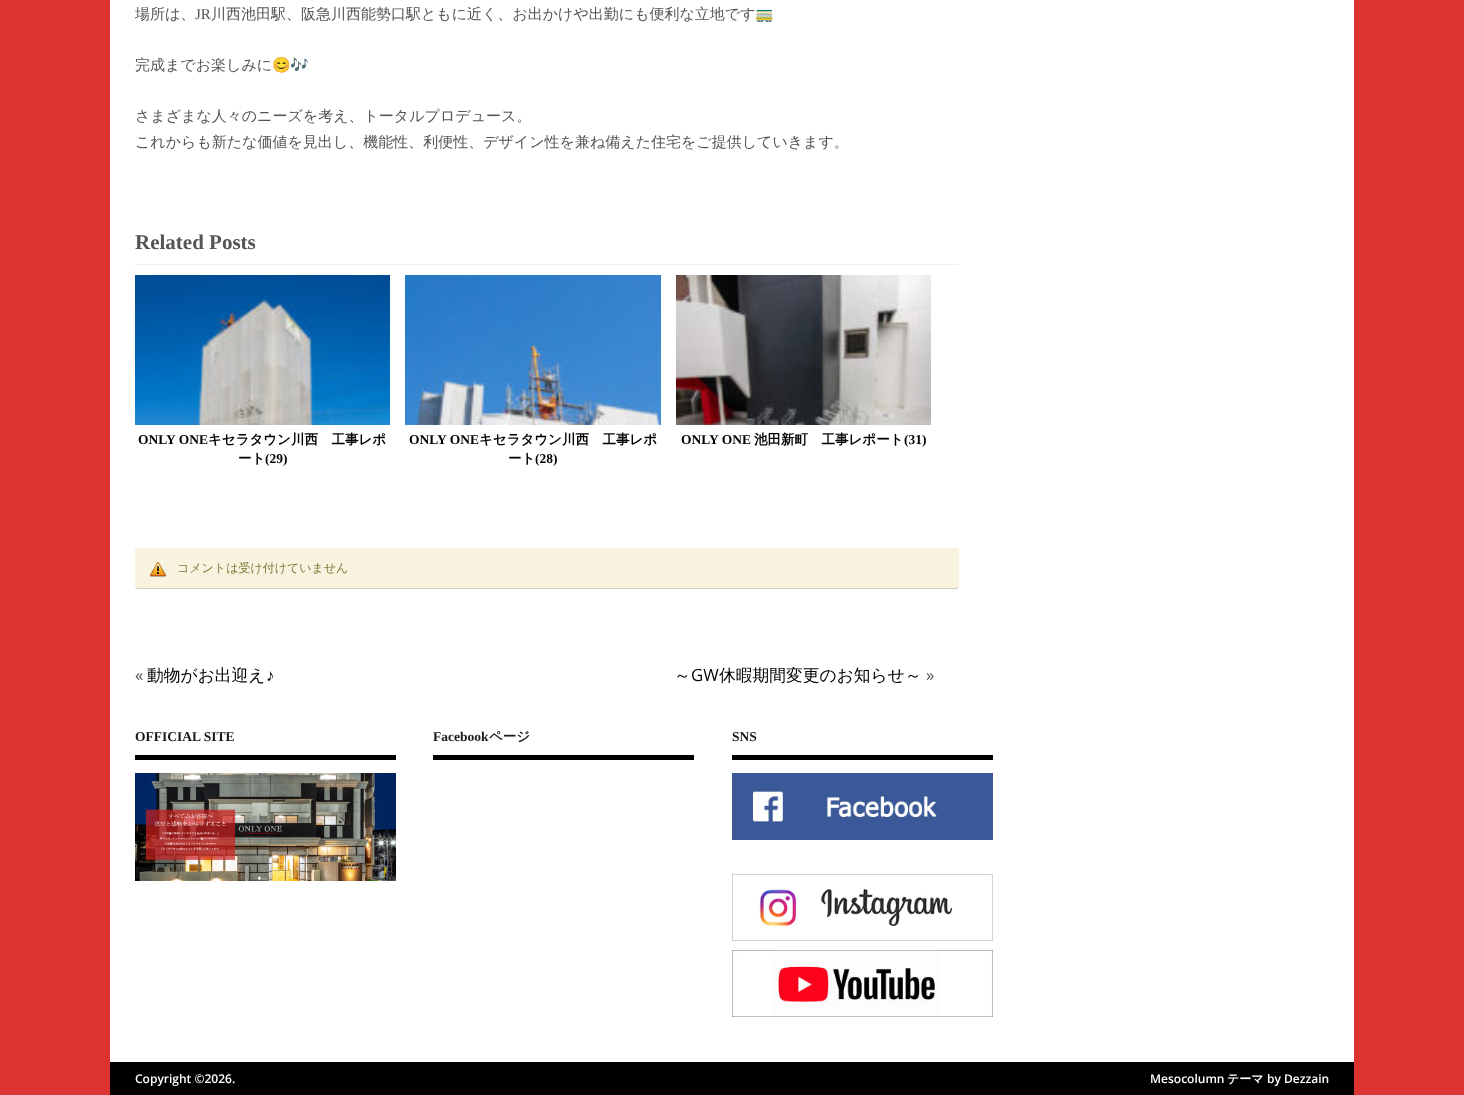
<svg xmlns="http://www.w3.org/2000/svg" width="1464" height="1095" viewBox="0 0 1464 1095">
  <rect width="100%" height="100%" fill="#d33"/>
  <path d="M110 0h1244v1062H110z" fill="#fff"/>
  <path d="M135 264h824v1H135z" fill="#eee"/>
  <image x="135" y="275" width="255" height="150" href="img/1.png"/>
  <image x="405" y="275" width="256" height="150" href="img/2.png"/>
  <image x="676" y="275" width="255" height="150" href="img/3.png"/>
  <rect x="135" y="547" width="824" height="42" rx="3" fill="#f7f3de"/>
  <image x="150" y="562" width="16" height="15" href="img/4.png"/>
  <path d="M135 585C135 587 136 589 138 589H956C958 589 959 587 959 585C959 587 958 588 956 588H138C136 588 135 587 135 585Z" fill="#00000026"/>
  <path d="M138 548H956C958 548 959 549 959 551C959 549 958 547 956 547H138C136 547 135 549 135 551C135 549 136 548 138 548Z" fill="#fff"/>
  <path d="M135 755h261v5H135z" fill="#000"/>
  <image x="135" y="773" width="261" height="108" href="img/5.png"/>
  <path d="M433 755h261v5H433z" fill="#000"/>
  <path d="M732 755h261v5H732z" fill="#000"/>
  <image x="732" y="773" width="261" height="67" href="img/6.png"/>
  <image x="732" y="874" width="261" height="67" href="img/7.png"/>
  <image x="732" y="950" width="261" height="67" href="img/8.png"/>
  <path d="M110 1062h1244v33H110z" fill="#000"/>
  <text x="135" y="19" font-family="WenQuanYi Zen Hei" font-size="15" font-weight="500" fill="#555">場所は、</text>
  <text x="195" y="19" font-family="Liberation Serif" font-size="15" fill="#555">JR</text>
  <text x="211" y="19" font-family="WenQuanYi Zen Hei" font-size="15" font-weight="500" fill="#555">川西池田駅、阪急川西能勢口駅ともに近く、お出かけや出勤にも便利な立地です</text>
  <text x="755" y="19" font-family="Noto Color Emoji" font-size="15" fill="#555">🚃</text>
  <text x="135" y="70" font-family="WenQuanYi Zen Hei" font-size="15" font-weight="500" fill="#555">完成までお楽しみに</text>
  <text x="272" y="70" font-family="Noto Color Emoji" font-size="15" fill="#555">😊🎶</text>
  <g font-family="WenQuanYi Zen Hei" font-size="15" font-weight="500" fill="#555">
    <text x="135" y="121">さまざまな人々のニーズを考え、トータルプロデュース。</text>
    <text x="135" y="147">これからも新たな価値を見出し、機能性、利便性、デザイン性を兼ね備えた住宅をご提供していきます。</text>
  </g>
  <text x="135" y="249" font-family="Liberation Serif" font-size="21" font-weight="bold" fill="#555">Related Posts</text>
  <text x="138" y="444" font-family="Liberation Serif" font-size="13.5" font-weight="bold" fill="#000">ONLY ONE</text>
  <g font-family="WenQuanYi Zen Hei" font-size="13.5" font-weight="bold" fill="#000">
    <text x="208" y="444">キセラタウン川西　工事レポ</text>
    <text x="238" y="463">ート</text>
  </g>
  <g font-family="Liberation Serif" font-size="13.5" font-weight="bold" fill="#000">
    <text x="265" y="463">(29)</text>
    <text x="409" y="444">ONLY ONE</text>
  </g>
  <g font-family="WenQuanYi Zen Hei" font-size="13.5" font-weight="bold" fill="#000">
    <text x="479" y="444">キセラタウン川西　工事レポ</text>
    <text x="508" y="463">ート</text>
  </g>
  <g font-family="Liberation Serif" font-size="13.5" font-weight="bold" fill="#000">
    <text x="535" y="463">(28)</text>
    <text x="681" y="444">ONLY ONE</text>
  </g>
  <text x="754" y="444" font-family="WenQuanYi Zen Hei" font-size="13.5" font-weight="bold" fill="#000">池田新町　工事レポート</text>
  <text x="904" y="444" font-family="Liberation Serif" font-size="13.5" font-weight="bold" fill="#000">(31)</text>
  <text x="177" y="572" font-family="WenQuanYi Zen Hei" font-size="12" font-weight="500" fill="#837639">コメントは受け付けていません</text>
  <text x="135" y="681" font-family="Open Sans" font-size="16.75" fill="#555">«</text>
  <text x="147" y="681" font-family="WenQuanYi Zen Hei" font-size="16.75" font-weight="500" fill="#000">動物がお出迎え</text>
  <text x="266" y="681" font-family="Liberation Sans" font-size="16.75" fill="#000">♪</text>
  <text x="674" y="681" font-family="WenQuanYi Zen Hei" font-size="16.75" font-weight="500" fill="#000">～</text>
  <text x="691" y="681" font-family="Open Sans" font-size="16.75" fill="#000">GW</text>
  <text x="719" y="681" font-family="WenQuanYi Zen Hei" font-size="16.75" font-weight="500" fill="#000">休暇期間変更のお知らせ～</text>
  <text x="926" y="681" font-family="Open Sans" font-size="16.75" fill="#555">»</text>
  <g font-family="Liberation Serif" font-size="13.5" font-weight="bold" fill="#181919">
    <text x="135" y="741">OFFICIAL SITE</text>
    <text x="433" y="741">Facebook</text>
  </g>
  <text x="489" y="741" font-family="WenQuanYi Zen Hei" font-size="13.5" font-weight="bold" fill="#181919">ページ</text>
  <text x="732" y="741" font-family="Liberation Serif" font-size="13.5" font-weight="bold" fill="#181919">SNS</text>
  <g font-family="Open Sans" font-size="12" font-weight="600" fill="#fff">
    <text x="135" y="1083">Copyright ©2026.</text>
    <text x="1150" y="1083">Mesocolumn</text>
  </g>
  <text x="1227" y="1083" font-family="WenQuanYi Zen Hei" font-size="12" font-weight="bold" fill="#fff">テーマ</text>
  <text x="1267" y="1083" font-family="Open Sans" font-size="12" font-weight="600" fill="#fff">by Dezzain</text>
</svg>
